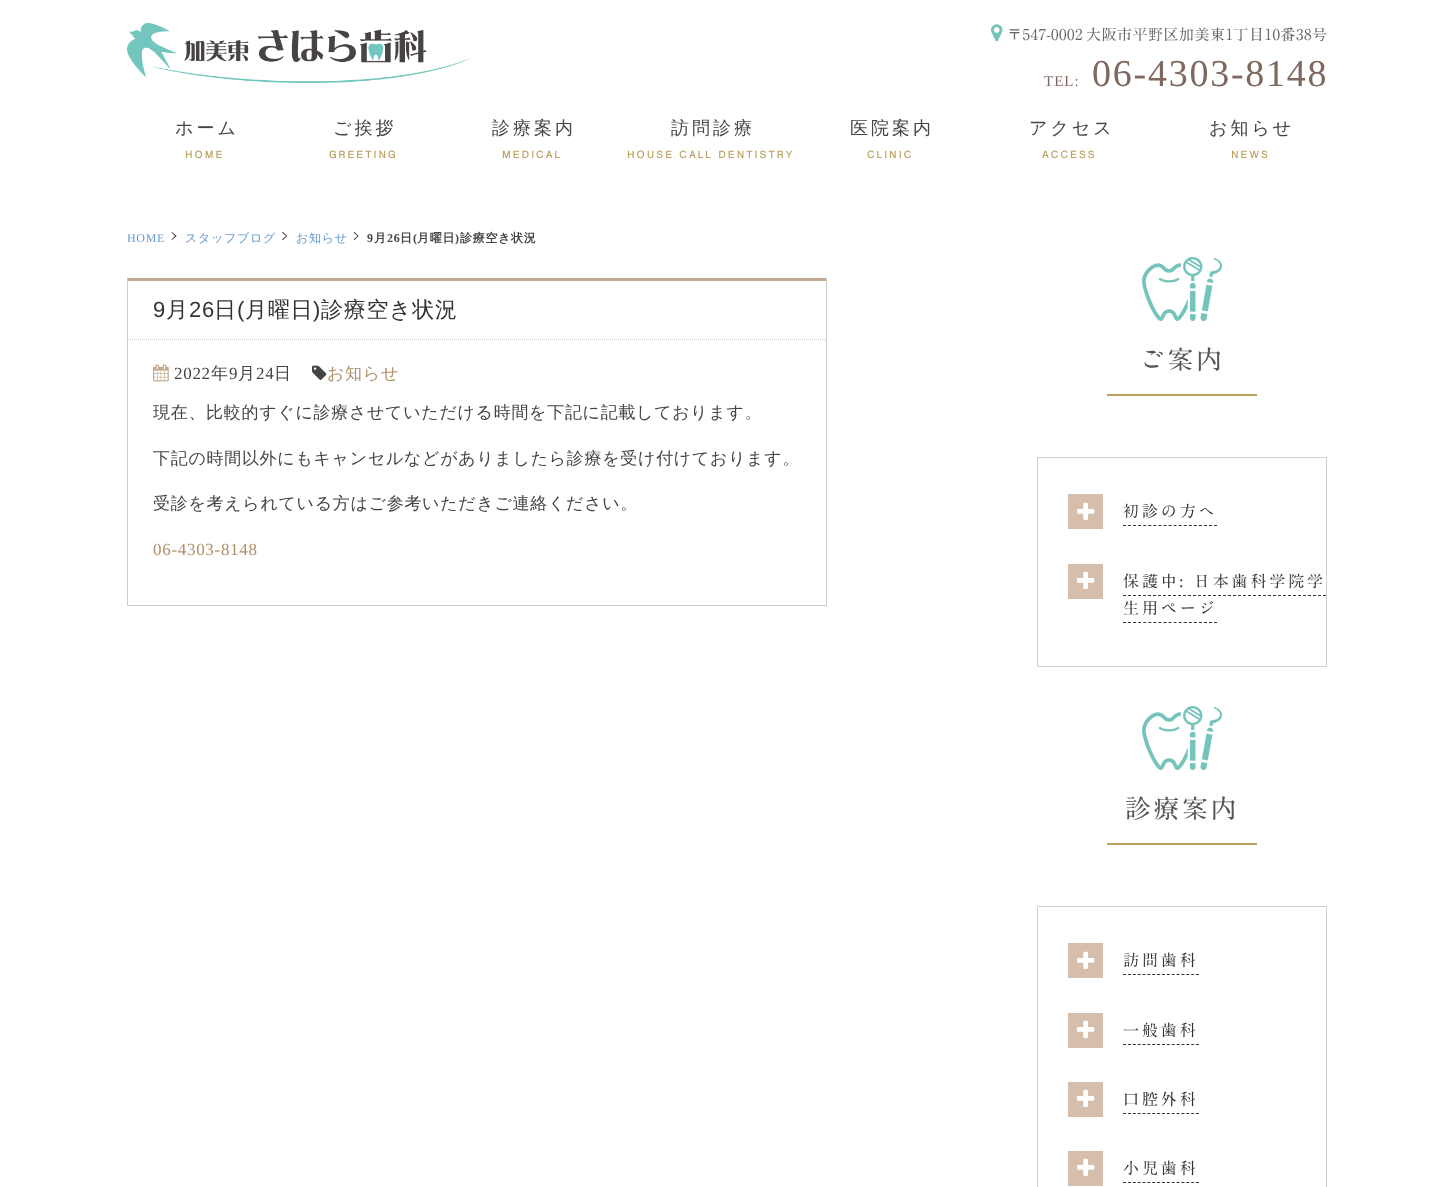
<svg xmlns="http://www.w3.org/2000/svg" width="1454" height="1187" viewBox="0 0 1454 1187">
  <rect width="100%" height="100%" fill="#fff"/>
  <image x="127" y="23" width="343" height="60" href="img/1.png"/>
  <image x="991" y="24" width="12" height="18" href="img/2.png"/>
  <path d="M172 232L176.5 236L175.5 236.5L171.5 232.5Z" fill="#333"/>
  <path d="M175.5 235.5L176.5 236L172 240L171.5 239.5Z" fill="#333"/>
  <path d="M283 232L287 236L286.5 236.5L282 232.5Z" fill="#333"/>
  <path d="M286.5 235.5L287 236L283 240L282 239.5Z" fill="#333"/>
  <path d="M354.5 232L358.5 236L358 236.5L353.5 232.5Z" fill="#333"/>
  <path d="M358 235.5L358.5 236L354.5 240L353.5 239.5Z" fill="#333"/>
  <path d="M127 278H827L826 281H128Z" fill="#c0ab92"/>
  <path d="M827 278V606L826 605V281Z" fill="#ccc"/>
  <path d="M127 605h700v1H127z" fill="#ccc"/>
  <path d="M127 606V278L128 281V605Z" fill="#ccc"/>
  <path d="M128 339.5H826" fill="none" stroke="#ccc" stroke-dasharray="1 1"/>
  <image x="153" y="364" width="16" height="18" href="img/3.png"/>
  <image x="312" y="365" width="15" height="15" href="img/4.png"/>
  <image x="1142" y="257" width="80" height="64" href="img/5.png"/>
  <path d="M1107 394h150v2H1107z" fill="#baa05f"/>
  <path d="M1037.5 457.5h289v209H1037.5z" fill="none" stroke="#cfcfcf"/>
  <path d="M1068 494h35v35H1068z" fill="#d5beab"/>
  <image x="1077" y="502" width="18" height="18" href="img/6.png"/>
  <path d="M1123 525.5H1217" fill="none" stroke="#323333" stroke-dasharray="3 2.06"/>
  <path d="M1068 564h35v35H1068z" fill="#d5beab"/>
  <image x="1077" y="571" width="18" height="18" href="img/6.png"/>
  <path d="M1123 595.5H1326" fill="none" stroke="#323333" stroke-dasharray="3 2"/>
  <path d="M1123 622.5H1217" fill="none" stroke="#323333" stroke-dasharray="3 2.06"/>
  <image x="1142" y="706" width="80" height="64" href="img/5.png"/>
  <path d="M1107 843h150v2H1107z" fill="#baa05f"/>
  <path d="M1037.5 906.5h289v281H1037.5z" fill="none" stroke="#cfcfcf"/>
  <path d="M1068 943h35v35H1068z" fill="#d5beab"/>
  <image x="1077" y="951" width="18" height="18" href="img/6.png"/>
  <path d="M1123 974.5H1199" fill="none" stroke="#323333" stroke-dasharray="3 1.87"/>
  <path d="M1068 1013h35v35H1068z" fill="#d5beab"/>
  <image x="1077" y="1020" width="18" height="18" href="img/6.png"/>
  <path d="M1123 1044.5H1199" fill="none" stroke="#323333" stroke-dasharray="3 1.87"/>
  <path d="M1068 1082h35v35H1068z" fill="#d5beab"/>
  <image x="1077" y="1089" width="18" height="18" href="img/6.png"/>
  <path d="M1123 1113.5H1199" fill="none" stroke="#323333" stroke-dasharray="3 1.87"/>
  <path d="M1068 1151h35v35H1068z" fill="#d5beab"/>
  <image x="1077" y="1158" width="18" height="18" href="img/6.png"/>
  <path d="M1123 1182.5H1199" fill="none" stroke="#323333" stroke-dasharray="3 1.87"/>
  <g font-family="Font" font-size="15" letter-spacing="0.5" fill="#666">
    <text x="1007" y="40">〒547-0002</text>
    <text x="1086" y="40">大阪市平野区加美東1丁目10番38号</text>
  </g>
  <text x="1044" y="86" font-family="Liberation Serif" font-size="15" letter-spacing="1" fill="#7f685f">TEL:</text>
  <text x="1092" y="86" font-family="Liberation Serif" font-size="38" letter-spacing="1.75" fill="#7f685f">06-4303-8148</text>
  <text x="175" y="134" font-family="WenQuanYi Zen Hei" font-size="18" font-weight="500" letter-spacing="3" fill="#444">ホーム</text>
  <text x="185" y="158" font-family="Font" font-size="10" font-weight="500" letter-spacing="2" fill="#baa05f">HOME</text>
  <text x="333" y="134" font-family="WenQuanYi Zen Hei" font-size="18" font-weight="500" letter-spacing="3" fill="#444">ご挨拶</text>
  <text x="329" y="158" font-family="Font" font-size="10" font-weight="500" letter-spacing="2" fill="#baa05f">GREETING</text>
  <text x="492" y="134" font-family="WenQuanYi Zen Hei" font-size="18" font-weight="500" letter-spacing="3" fill="#444">診療案内</text>
  <text x="502" y="158" font-family="Font" font-size="10" font-weight="500" letter-spacing="2" fill="#baa05f">MEDICAL</text>
  <text x="671" y="134" font-family="WenQuanYi Zen Hei" font-size="18" font-weight="500" letter-spacing="3" fill="#444">訪問診療</text>
  <text x="627" y="158" font-family="Font" font-size="10" font-weight="500" letter-spacing="2" fill="#baa05f">HOUSE CALL DENTISTRY</text>
  <text x="850" y="134" font-family="WenQuanYi Zen Hei" font-size="18" font-weight="500" letter-spacing="3" fill="#444">医院案内</text>
  <text x="867" y="158" font-family="Font" font-size="10" font-weight="500" letter-spacing="2" fill="#baa05f">CLINIC</text>
  <text x="1029" y="134" font-family="WenQuanYi Zen Hei" font-size="18" font-weight="500" letter-spacing="3" fill="#444">アクセス</text>
  <text x="1042" y="158" font-family="Font" font-size="10" font-weight="500" letter-spacing="2" fill="#baa05f">ACCESS</text>
  <text x="1209" y="134" font-family="WenQuanYi Zen Hei" font-size="18" font-weight="500" letter-spacing="3" fill="#444">お知らせ</text>
  <text x="1231" y="158" font-family="Font" font-size="10" font-weight="500" letter-spacing="2" fill="#baa05f">NEWS</text>
  <text x="127" y="242" font-family="Liberation Serif" font-size="12" letter-spacing="0.7" fill="#69c">HOME</text>
  <g font-family="WenQuanYi Zen Hei" font-size="12" font-weight="500" letter-spacing="0.7" fill="#69c">
    <text x="185" y="242">スタッフブログ</text>
    <text x="296" y="242">お知らせ</text>
  </g>
  <text x="367" y="242" font-family="Liberation Serif" font-size="12" font-weight="bold" letter-spacing="0.7" fill="#444">9</text>
  <text x="374" y="242" font-family="WenQuanYi Zen Hei" font-size="12" font-weight="bold" letter-spacing="0.7" fill="#444">月</text>
  <text x="387" y="242" font-family="Liberation Serif" font-size="12" font-weight="bold" letter-spacing="0.7" fill="#444">26</text>
  <text x="400" y="242" font-family="WenQuanYi Zen Hei" font-size="12" font-weight="bold" letter-spacing="0.7" fill="#444">日</text>
  <text x="413" y="242" font-family="Liberation Serif" font-size="12" font-weight="bold" letter-spacing="0.7" fill="#444">(</text>
  <text x="417" y="242" font-family="WenQuanYi Zen Hei" font-size="12" font-weight="bold" letter-spacing="0.7" fill="#444">月曜日</text>
  <text x="455" y="242" font-family="Liberation Serif" font-size="12" font-weight="bold" letter-spacing="0.7" fill="#444">)</text>
  <text x="460" y="242" font-family="WenQuanYi Zen Hei" font-size="12" font-weight="bold" letter-spacing="0.7" fill="#444">診療空き状況</text>
  <text x="153" y="317" font-family="Liberation Sans" font-size="22" letter-spacing="0.7" fill="#333">9</text>
  <text x="166" y="317" font-family="WenQuanYi Zen Hei" font-size="22" font-weight="500" letter-spacing="0.7" fill="#333">月</text>
  <text x="189" y="317" font-family="Liberation Sans" font-size="22" letter-spacing="0.7" fill="#333">26</text>
  <text x="214" y="317" font-family="WenQuanYi Zen Hei" font-size="22" font-weight="500" letter-spacing="0.7" fill="#333">日</text>
  <text x="237" y="317" font-family="Liberation Sans" font-size="22" letter-spacing="0.7" fill="#333">(</text>
  <text x="245" y="317" font-family="WenQuanYi Zen Hei" font-size="22" font-weight="500" letter-spacing="0.7" fill="#333">月曜日</text>
  <text x="313" y="317" font-family="Liberation Sans" font-size="22" letter-spacing="0.7" fill="#333">)</text>
  <text x="321" y="317" font-family="WenQuanYi Zen Hei" font-size="22" font-weight="500" letter-spacing="0.7" fill="#333">診療空き状況</text>
  <text x="174" y="379" font-family="Liberation Serif" font-size="17" letter-spacing="0.7" fill="#444">2022</text>
  <text x="211" y="379" font-family="WenQuanYi Zen Hei" font-size="17" font-weight="500" letter-spacing="0.7" fill="#444">年</text>
  <text x="229" y="379" font-family="Liberation Serif" font-size="17" letter-spacing="0.7" fill="#444">9</text>
  <text x="238" y="379" font-family="WenQuanYi Zen Hei" font-size="17" font-weight="500" letter-spacing="0.7" fill="#444">月</text>
  <text x="256" y="379" font-family="Liberation Serif" font-size="17" letter-spacing="0.7" fill="#444">24</text>
  <text x="274" y="379" font-family="WenQuanYi Zen Hei" font-size="17" font-weight="500" letter-spacing="0.7" fill="#444">日</text>
  <text x="327" y="379" font-family="WenQuanYi Zen Hei" font-size="17" font-weight="500" letter-spacing="0.7" fill="#af8f68">お知らせ</text>
  <g font-family="WenQuanYi Zen Hei" font-size="17" font-weight="500" letter-spacing="0.7" fill="#444">
    <text x="153" y="418">現在、比較的すぐに診療させていただける時間を下記に記載しております。</text>
    <text x="153" y="464">下記の時間以外にもキャンセルなどがありましたら診療を受け付けております。</text>
    <text x="153" y="509">受診を考えられている方はご参考いただきご連絡ください。</text>
  </g>
  <text x="153" y="555" font-family="Liberation Serif" font-size="17" letter-spacing="0.7" fill="#af8f68">06-4303-8148</text>
  <text x="1139" y="369" font-family="Font" font-size="26" letter-spacing="2.5" fill="#545555">ご案内</text>
  <g font-family="Font" font-size="16" letter-spacing="2.9" fill="#333">
    <text x="1123" y="517">初診の方へ</text>
    <text x="1123" y="587">保護中: 日本歯科学院学</text>
    <text x="1123" y="614">生用ページ</text>
  </g>
  <text x="1125" y="818" font-family="Font" font-size="26" letter-spacing="2.5" fill="#545555">診療案内</text>
  <g font-family="Font" font-size="16" letter-spacing="2.9" fill="#333">
    <text x="1123" y="966">訪問歯科</text>
    <text x="1123" y="1036">一般歯科</text>
    <text x="1123" y="1105">口腔外科</text>
    <text x="1123" y="1174">小児歯科</text>
  </g>
</svg>
